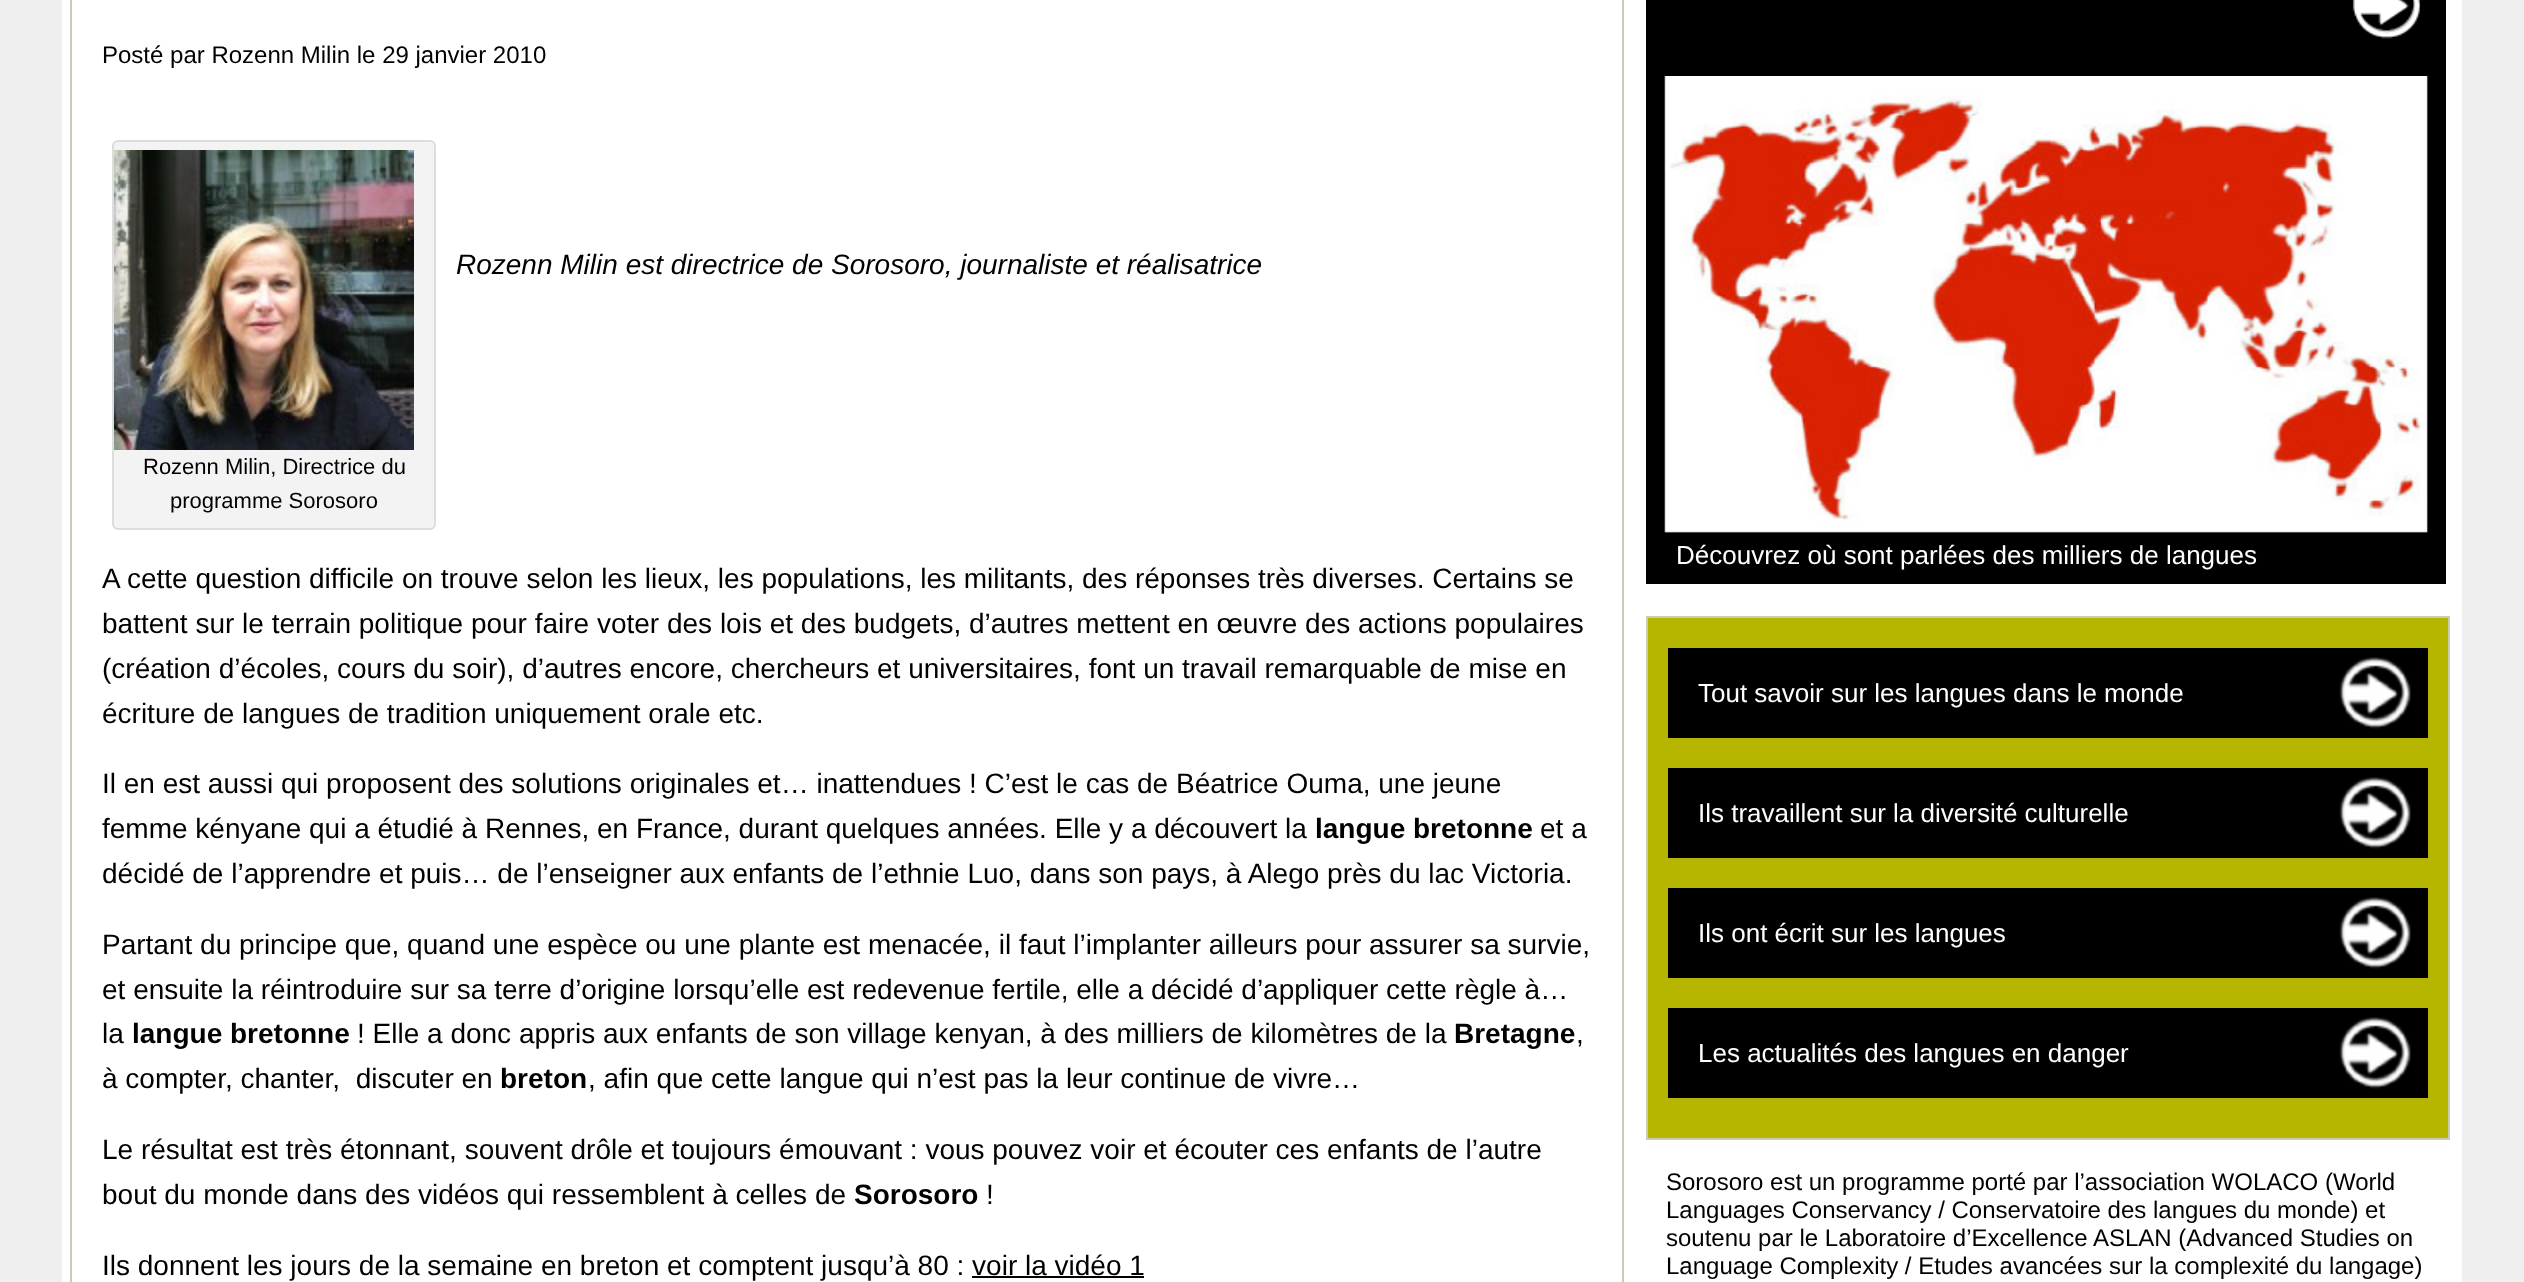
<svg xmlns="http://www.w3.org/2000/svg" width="2524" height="1282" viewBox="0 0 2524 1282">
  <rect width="100%" height="100%" fill="#efefef"/>
  <path d="M62 0h2400v1282H62z" fill="#fff"/>
  <path d="M71 -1h1552v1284H71z" fill="none" stroke="#cccbb1" stroke-width="2"/>
  <rect x="113" y="141" width="322" height="388" rx="5" fill="#f3f3f3" stroke="#ddd" stroke-width="2"/>
  <image x="114" y="150" width="300" height="300" href="img/1.png"/>
  <path d="M972 1276h172v2H972z" fill="#000"/>
  <path d="M1646 0h800v584H1646z" fill="#000"/>
  <image x="2352" y="0" width="68" height="39" href="img/2.png"/>
  <image x="1664" y="76" width="764" height="457" href="img/3.png"/>
  <path d="M1647 617h802v522H1647z" fill="#b6b600" stroke="#cccbb1" stroke-width="2"/>
  <image x="1668" y="648" width="760" height="90" href="img/4.png"/>
  <image x="1668" y="768" width="760" height="90" href="img/4.png"/>
  <image x="1668" y="888" width="760" height="90" href="img/4.png"/>
  <image x="1668" y="1008" width="760" height="90" href="img/4.png"/>
  <text x="102" y="63" font-family="Liberation Sans" font-size="24" fill="#000">Posté par Rozenn Milin le 29 janvier 2010</text>
  <text x="456" y="274" font-family="Liberation Sans" font-size="28" font-style="italic" fill="#000">Rozenn Milin est directrice de Sorosoro, journaliste et réalisatrice</text>
  <g font-family="Liberation Sans" font-size="22" fill="#000">
    <text x="143" y="474">Rozenn Milin, Directrice du</text>
    <text x="170" y="508">programme Sorosoro</text>
  </g>
  <g font-family="Liberation Sans" font-size="28" fill="#000">
    <text x="102" y="588">A cette question difficile on trouve selon les lieux, les populations, les militants, des réponses très diverses. Certains se</text>
    <text x="102" y="633">battent sur le terrain politique pour faire voter des lois et des budgets, d’autres mettent en œuvre des actions populaires</text>
    <text x="102" y="678">(création d’écoles, cours du soir), d’autres encore, chercheurs et universitaires, font un travail remarquable de mise en</text>
    <text x="102" y="723">écriture de langues de tradition uniquement orale etc.</text>
    <text x="102" y="793">Il en est aussi qui proposent des solutions originales et… inattendues ! C’est le cas de Béatrice Ouma, une jeune</text>
    <text x="102" y="838">femme kényane qui a étudié à Rennes, en France, durant quelques années. Elle y a découvert la</text>
  </g>
  <text x="1315" y="838" font-family="Liberation Sans" font-size="28" font-weight="bold" fill="#000">langue bretonne</text>
  <g font-family="Liberation Sans" font-size="28" fill="#000">
    <text x="1540" y="838">et a</text>
    <text x="102" y="883">décidé de l’apprendre et puis… de l’enseigner aux enfants de l’ethnie Luo, dans son pays, à Alego près du lac Victoria.</text>
    <text x="102" y="954">Partant du principe que, quand une espèce ou une plante est menacée, il faut l’implanter ailleurs pour assurer sa survie,</text>
    <text x="102" y="999">et ensuite la réintroduire sur sa terre d’origine lorsqu’elle est redevenue fertile, elle a décidé d’appliquer cette règle à…</text>
    <text x="102" y="1043">la</text>
  </g>
  <text x="132" y="1043" font-family="Liberation Sans" font-size="28" font-weight="bold" fill="#000">langue bretonne</text>
  <text x="357" y="1043" font-family="Liberation Sans" font-size="28" fill="#000">! Elle a donc appris aux enfants de son village kenyan, à des milliers de kilomètres de la</text>
  <text x="1454" y="1043" font-family="Liberation Sans" font-size="28" font-weight="bold" fill="#000">Bretagne</text>
  <g font-family="Liberation Sans" font-size="28" fill="#000">
    <text x="1576" y="1043">,</text>
    <text x="102" y="1088" xml:space="preserve">à compter, chanter,  discuter en</text>
  </g>
  <text x="500" y="1088" font-family="Liberation Sans" font-size="28" font-weight="bold" fill="#000">breton</text>
  <g font-family="Liberation Sans" font-size="28" fill="#000">
    <text x="588" y="1088">, afin que cette langue qui n’est pas la leur continue de vivre…</text>
    <text x="102" y="1159">Le résultat est très étonnant, souvent drôle et toujours émouvant : vous pouvez voir et écouter ces enfants de l’autre</text>
    <text x="102" y="1204">bout du monde dans des vidéos qui ressemblent à celles de</text>
  </g>
  <text x="854" y="1204" font-family="Liberation Sans" font-size="28" font-weight="bold" fill="#000">Sorosoro</text>
  <g font-family="Liberation Sans" font-size="28" fill="#000">
    <text x="986" y="1204">!</text>
    <text x="102" y="1275">Ils donnent les jours de la semaine en breton et comptent jusqu’à 80 : voir la vidéo 1</text>
  </g>
  <g font-family="Liberation Sans" font-size="26" fill="#fff">
    <text x="1676" y="564">Découvrez où sont parlées des milliers de langues</text>
    <text x="1698" y="702">Tout savoir sur les langues dans le monde</text>
    <text x="1698" y="822">Ils travaillent sur la diversité culturelle</text>
    <text x="1698" y="942">Ils ont écrit sur les langues</text>
    <text x="1698" y="1062">Les actualités des langues en danger</text>
  </g>
  <g font-family="Liberation Sans" font-size="24" fill="#000">
    <text x="1666" y="1190">Sorosoro est un programme porté par l’association WOLACO (World</text>
    <text x="1666" y="1218">Languages Conservancy / Conservatoire des langues du monde) et</text>
    <text x="1666" y="1246">soutenu par le Laboratoire d’Excellence ASLAN (Advanced Studies on</text>
    <text x="1666" y="1274">Language Complexity / Etudes avancées sur la complexité du langage)</text>
  </g>
</svg>
